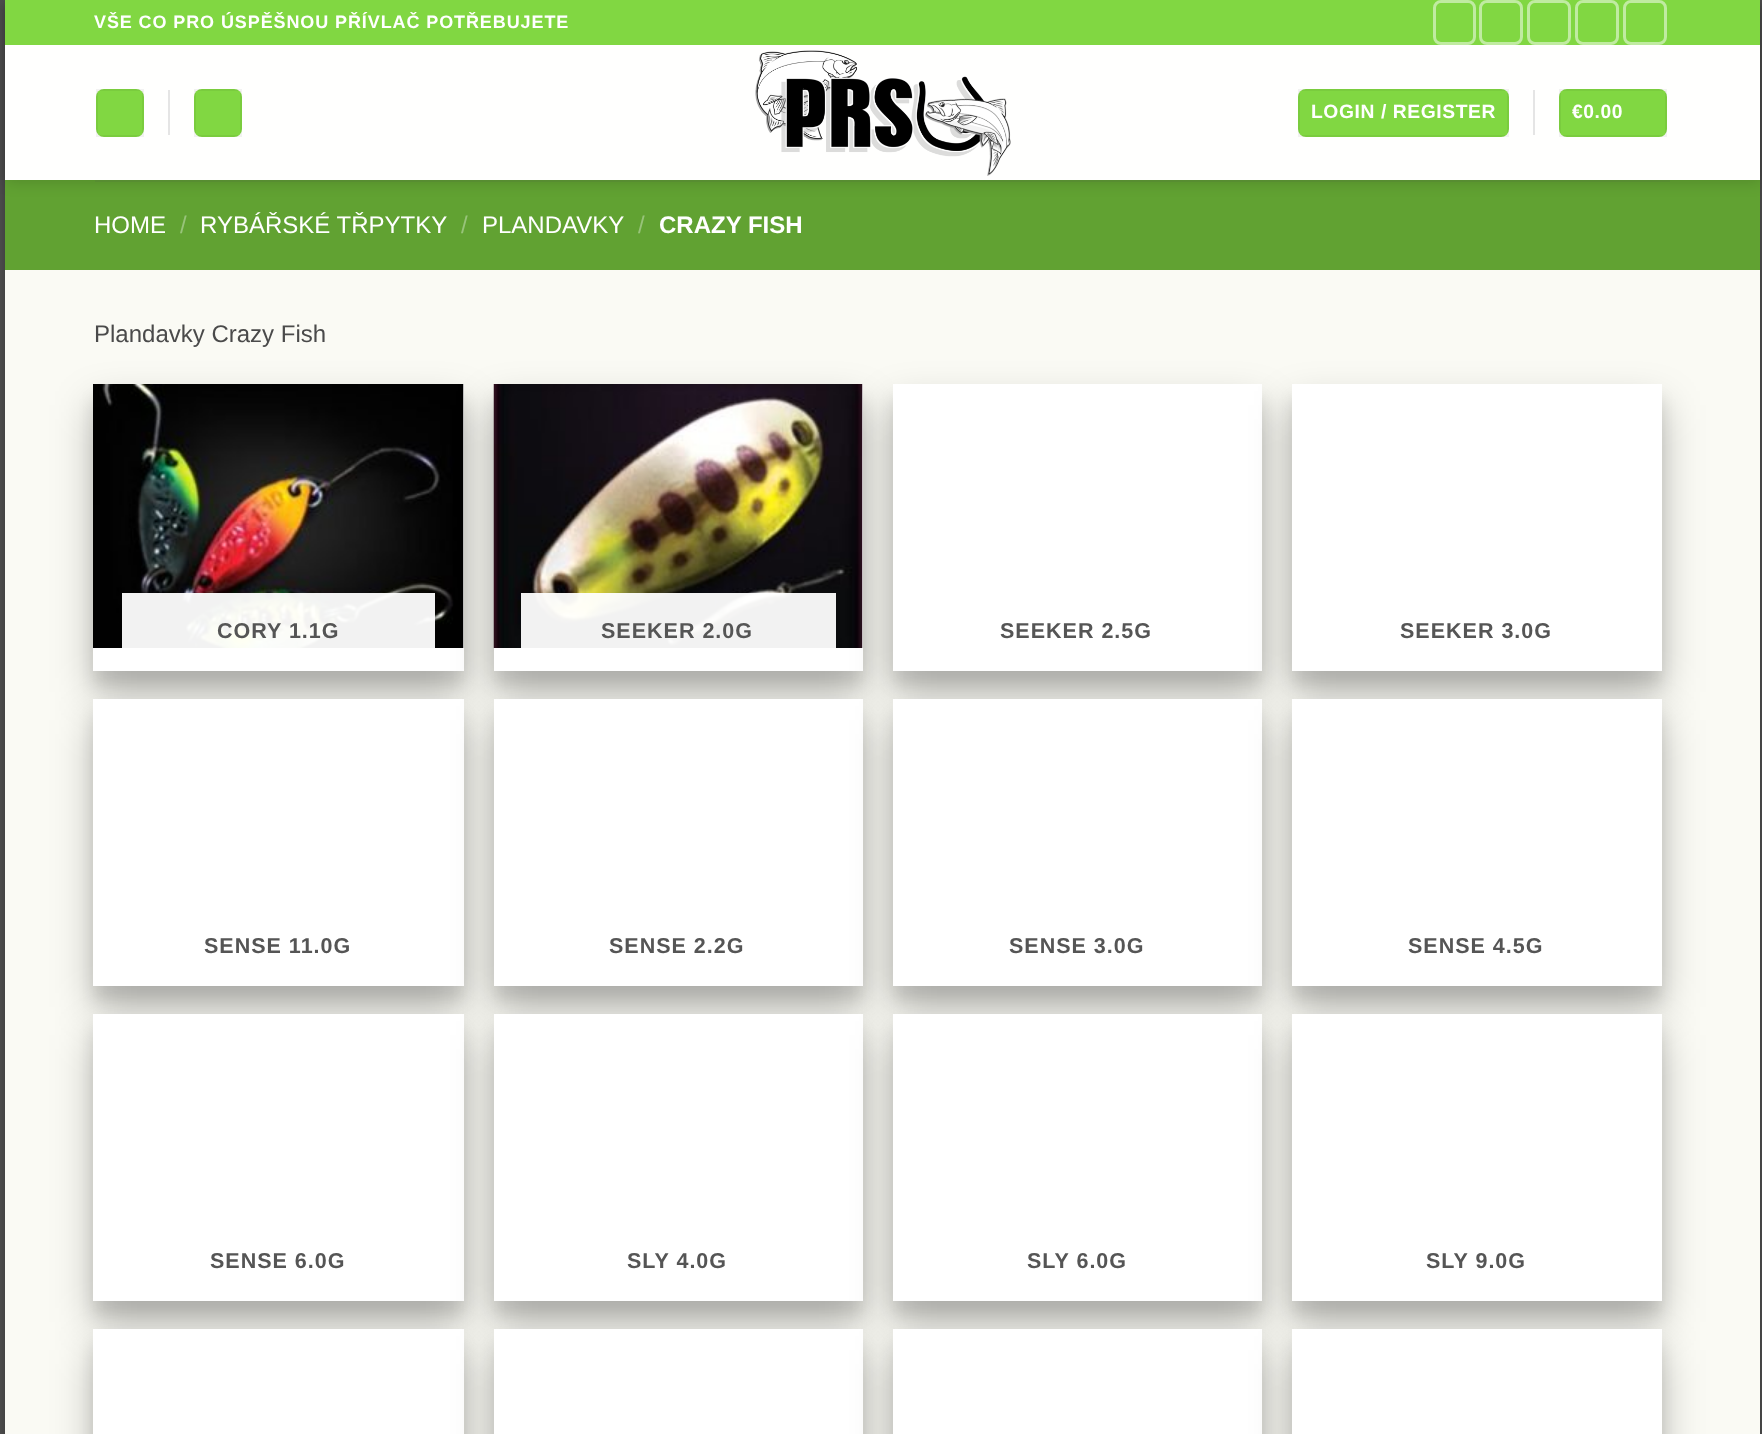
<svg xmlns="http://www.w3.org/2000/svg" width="1762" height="1434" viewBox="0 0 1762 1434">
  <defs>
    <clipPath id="clip1"><path d="M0 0H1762V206H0ZM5 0H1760V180H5Z" clip-rule="evenodd"/></clipPath>
  </defs>
  <rect width="100%" height="100%" fill="#4d4d4d"/>
  <path d="M5 5h1755v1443H5z" fill="#0000003b" filter="blur(4.5px)"/>
  <path d="M5 45h1755v1389H5z" fill="#fafaf4"/>
  <path d="M5 180h1755v90H5z" fill="#61a232"/>
  <g clip-path="url(#clip1)">
    <path d="M6 2h1755v180H6z" fill="#00000026" filter="blur(7.5px)"/>
  </g>
  <path d="M5 0h1755v45H5z" fill="#81d742"/>
  <rect x="1434.5" y="1.5" width="40" height="42" rx="6.5" fill="none" stroke="#c0eba1" stroke-width="3"/>
  <rect x="1480.5" y="1.5" width="41" height="42" rx="6.5" fill="none" stroke="#c0eba1" stroke-width="3"/>
  <rect x="1528.5" y="1.5" width="41" height="42" rx="6.5" fill="none" stroke="#c0eba1" stroke-width="3"/>
  <rect x="1576.5" y="1.5" width="41" height="42" rx="6.5" fill="none" stroke="#c0eba1" stroke-width="3"/>
  <rect x="1624.5" y="1.5" width="41" height="42" rx="6.5" fill="none" stroke="#c0eba1" stroke-width="3"/>
  <path d="M5 45h1755v135H5z" fill="#ffffffe6"/>
  <rect x="96" y="89" width="48" height="48" rx="8" fill="#81d742"/>
  <path d="M97 90h46v46H97z" fill="none" stroke="#0000000d" stroke-width="2"/>
  <path d="M168 90h2v45H168z" fill="#e5e5e5"/>
  <rect x="194" y="89" width="48" height="48" rx="8" fill="#81d742"/>
  <path d="M195 90h46v46H195z" fill="none" stroke="#0000000d" stroke-width="2"/>
  <image x="755" y="50" width="256" height="126" href="img/1.png"/>
  <rect x="1298" y="89" width="211" height="48" rx="8" fill="#81d742"/>
  <path d="M1299 90h209v46H1299z" fill="none" stroke="#0000000d" stroke-width="2"/>
  <path d="M1533 90h2v45H1533z" fill="#e5e5e5"/>
  <rect x="1559" y="89" width="108" height="48" rx="8" fill="#81d742"/>
  <path d="M1560 90h106v46H1560z" fill="none" stroke="#0000000d" stroke-width="2"/>
  <path d="M95 180h1575v2H95z" fill="#578d31"/>
  <path d="M93 399h371v287H93z" fill="#0000001a" filter="blur(7.5px)"/>
  <path d="M93 405h371v287H93z" fill="#00000040" filter="blur(21px)"/>
  <path d="M93 384h371v287H93z" fill="#fff"/>
  <image x="93" y="384" width="371" height="264" href="img/2.png"/>
  <path d="M122 593h313v55H122z" fill="#fffffff2"/>
  <path d="M494 399h369v287H494z" fill="#0000001a" filter="blur(7.5px)"/>
  <path d="M494 405h369v287H494z" fill="#00000040" filter="blur(21px)"/>
  <path d="M494 384h369v287H494z" fill="#fff"/>
  <image x="493" y="384" width="370" height="264" href="img/3.png"/>
  <path d="M521 593h315v55H521z" fill="#fffffff2"/>
  <path d="M893 399h369v287H893z" fill="#0000001a" filter="blur(7.5px)"/>
  <path d="M893 405h369v287H893z" fill="#00000040" filter="blur(21px)"/>
  <path d="M893 384h369v287H893z" fill="#fff"/>
  <path d="M1292 399h370v287H1292z" fill="#0000001a" filter="blur(7.5px)"/>
  <path d="M1292 405h370v287H1292z" fill="#00000040" filter="blur(21px)"/>
  <path d="M1292 384h370v287H1292z" fill="#fff"/>
  <path d="M93 714h371v287H93z" fill="#0000001a" filter="blur(7.5px)"/>
  <path d="M93 720h371v287H93z" fill="#00000040" filter="blur(21px)"/>
  <path d="M93 699h371v287H93z" fill="#fff"/>
  <path d="M494 714h369v287H494z" fill="#0000001a" filter="blur(7.5px)"/>
  <path d="M494 720h369v287H494z" fill="#00000040" filter="blur(21px)"/>
  <path d="M494 699h369v287H494z" fill="#fff"/>
  <path d="M893 714h369v287H893z" fill="#0000001a" filter="blur(7.5px)"/>
  <path d="M893 720h369v287H893z" fill="#00000040" filter="blur(21px)"/>
  <path d="M893 699h369v287H893z" fill="#fff"/>
  <path d="M1292 714h370v287H1292z" fill="#0000001a" filter="blur(7.5px)"/>
  <path d="M1292 720h370v287H1292z" fill="#00000040" filter="blur(21px)"/>
  <path d="M1292 699h370v287H1292z" fill="#fff"/>
  <path d="M93 1029h371v287H93z" fill="#0000001a" filter="blur(7.5px)"/>
  <path d="M93 1035h371v287H93z" fill="#00000040" filter="blur(21px)"/>
  <path d="M93 1014h371v287H93z" fill="#fff"/>
  <path d="M494 1029h369v287H494z" fill="#0000001a" filter="blur(7.5px)"/>
  <path d="M494 1035h369v287H494z" fill="#00000040" filter="blur(21px)"/>
  <path d="M494 1014h369v287H494z" fill="#fff"/>
  <path d="M893 1029h369v287H893z" fill="#0000001a" filter="blur(7.5px)"/>
  <path d="M893 1035h369v287H893z" fill="#00000040" filter="blur(21px)"/>
  <path d="M893 1014h369v287H893z" fill="#fff"/>
  <path d="M1292 1029h370v287H1292z" fill="#0000001a" filter="blur(7.5px)"/>
  <path d="M1292 1035h370v287H1292z" fill="#00000040" filter="blur(21px)"/>
  <path d="M1292 1014h370v287H1292z" fill="#fff"/>
  <path d="M93 1344h371v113H93z" fill="#0000001a" filter="blur(7.5px)"/>
  <path d="M93 1350h371v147H93z" fill="#00000040" filter="blur(21px)"/>
  <path d="M93 1329h371v105H93z" fill="#fff"/>
  <path d="M494 1344h369v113H494z" fill="#0000001a" filter="blur(7.5px)"/>
  <path d="M494 1350h369v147H494z" fill="#00000040" filter="blur(21px)"/>
  <path d="M494 1329h369v105H494z" fill="#fff"/>
  <path d="M893 1344h369v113H893z" fill="#0000001a" filter="blur(7.5px)"/>
  <path d="M893 1350h369v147H893z" fill="#00000040" filter="blur(21px)"/>
  <path d="M893 1329h369v105H893z" fill="#fff"/>
  <path d="M1292 1344h370v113H1292z" fill="#0000001a" filter="blur(7.5px)"/>
  <path d="M1292 1350h370v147H1292z" fill="#00000040" filter="blur(21px)"/>
  <path d="M1292 1329h370v105H1292z" fill="#fff"/>
  <text x="94" y="28" font-family="Liberation Sans" font-size="18" font-weight="bold" letter-spacing="0.9" fill="#fff">VŠE CO PRO ÚSPĚŠNOU PŘÍVLAČ POTŘEBUJETE</text>
  <g font-family="Liberation Sans" font-size="19.25" font-weight="bold" letter-spacing="0.6" fill="#fff">
    <text x="1311" y="118">LOGIN / REGISTER</text>
    <text x="1572" y="118">€0.00</text>
  </g>
  <text x="94" y="233" font-family="Liberation Sans" font-size="24" fill="#fff">HOME</text>
  <text x="180" y="233" font-family="Liberation Sans" font-size="24" fill="#98c37a">/</text>
  <text x="200" y="233" font-family="Liberation Sans" font-size="24" fill="#fff">RYBÁŘSKÉ TŘPYTKY</text>
  <text x="461" y="233" font-family="Liberation Sans" font-size="24" fill="#98c37a">/</text>
  <text x="482" y="233" font-family="Liberation Sans" font-size="24" fill="#fff">PLANDAVKY</text>
  <text x="638" y="233" font-family="Liberation Sans" font-size="24" fill="#98c37a">/</text>
  <text x="659" y="233" font-family="Liberation Sans" font-size="24" font-weight="bold" fill="#fff">CRAZY FISH</text>
  <text x="94" y="342" font-family="Liberation Sans" font-size="24" fill="#4a4a4a">Plandavky Crazy Fish</text>
  <g font-family="Liberation Sans" font-size="21.5" font-weight="bold" letter-spacing="1" fill="#555">
    <text x="217" y="638">CORY 1.1G</text>
    <text x="601" y="638">SEEKER 2.0G</text>
    <text x="1000" y="638">SEEKER 2.5G</text>
    <text x="1400" y="638">SEEKER 3.0G</text>
    <text x="204" y="953">SENSE 11.0G</text>
    <text x="609" y="953">SENSE 2.2G</text>
    <text x="1009" y="953">SENSE 3.0G</text>
    <text x="1408" y="953">SENSE 4.5G</text>
    <text x="210" y="1268">SENSE 6.0G</text>
    <text x="627" y="1268">SLY 4.0G</text>
    <text x="1027" y="1268">SLY 6.0G</text>
    <text x="1426" y="1268">SLY 9.0G</text>
  </g>
</svg>
